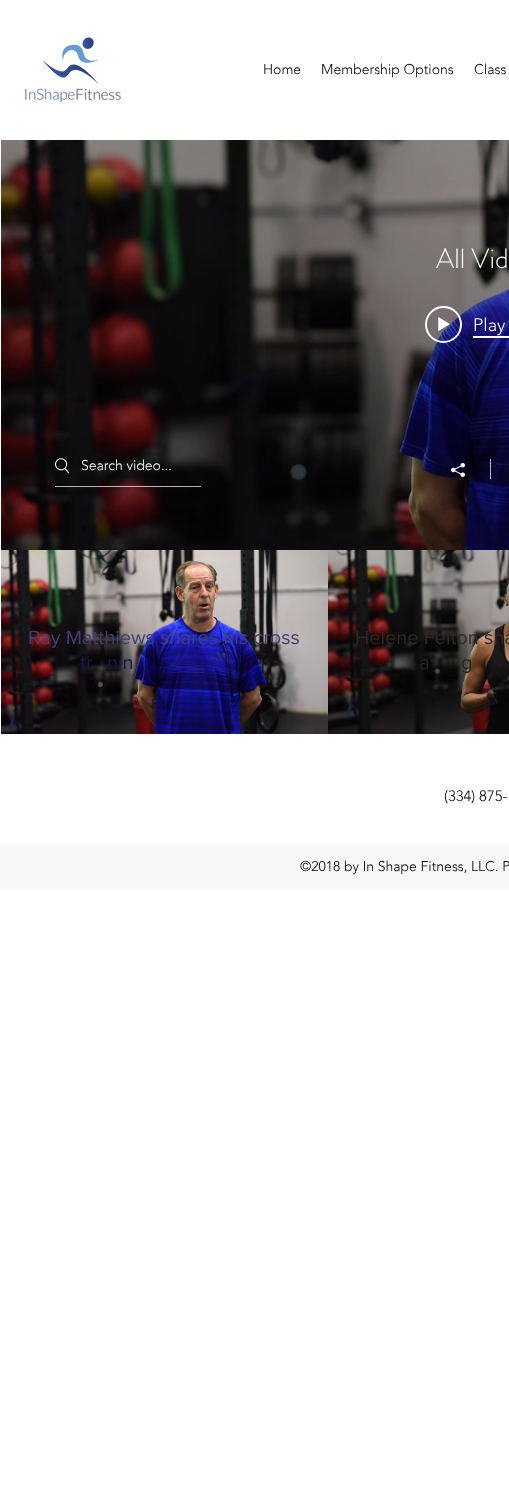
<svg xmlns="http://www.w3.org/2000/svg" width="509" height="1490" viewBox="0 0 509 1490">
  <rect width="100%" height="100%" fill="#fff"/>
  <image x="25" y="37" width="96" height="66" href="img/1.png"/>
  <image x="1" y="140" width="508" height="410" href="img/2.png"/>
  <image x="27" y="140" width="481" height="389" href="img/3.png"/>
  <circle cx="443.5" cy="324.5" r="17.5" fill="none" stroke="#fff" stroke-width="2"/>
  <image x="438" y="317" width="12" height="14" href="img/4.png"/>
  <path d="M473 336h36v2H473z" fill="#fff"/>
  <image x="55" y="458" width="14" height="16" href="img/5.png"/>
  <path d="M55 486h146v1H55z" fill="#ffffffb3"/>
  <image x="451" y="463" width="14" height="14" href="img/6.png"/>
  <path d="M490 459h1v20H490z" fill="#ffffffb3"/>
  <image x="326" y="550" width="2" height="184" href="img/7.png"/>
  <image x="1" y="550" width="325" height="184" href="img/8.png"/>
  <image x="328" y="719" width="181" height="15" href="img/9.png"/>
  <image x="328" y="550" width="181" height="169" href="img/10.png"/>
  <path d="M0 844h509v46H0z" fill="#f7f7f7"/>
  <g font-family="'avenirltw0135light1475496'" font-size="14" font-weight="300" fill="#000">
    <text x="263" y="74">Home</text>
    <text x="321" y="74">Membership Options</text>
    <text x="474" y="74">Class</text>
  </g>
  <text x="436" y="268" font-family="'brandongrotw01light'" font-size="28" font-weight="300" fill="#fff">All Vid</text>
  <text x="473" y="331" font-family="'avenirltw0135light1475496'" font-size="18" font-weight="300" fill="#fff">Play</text>
  <text x="81" y="470" font-family="'avenirltw0135light1475496'" font-size="14" font-weight="300" fill="#fff">Search video...</text>
  <text x="28" y="644" font-family="'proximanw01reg'" font-size="20" fill="#463d70">Ray Matthiews shares his cross</text>
  <g font-family="'proximanw01reg'" font-size="20" fill="#181553">
    <text x="80" y="669">tr</text>
    <text x="107" y="669">nin</text>
  </g>
  <text x="151" y="709" font-family="'avenirltw0135light1475496'" font-size="14" font-weight="bold" fill="#120d61">P</text>
  <text x="355" y="644" font-family="'proximanw01reg'" font-size="20" fill="#312723">Helene Felton sha</text>
  <g font-family="'proximanw01reg'" font-size="20" fill="#29231f">
    <text x="419" y="669">a</text>
    <text x="461" y="669">g</text>
  </g>
  <text x="444" y="801" font-family="'avenirltw0135light1475496'" font-size="15" font-weight="300" fill="#000">(334) 875-</text>
  <text x="300" y="871" font-family="'avenirltw0135light1475496'" font-size="14" font-weight="300" fill="#000">©2018 by In Shape Fitness, LLC. P</text>
</svg>
